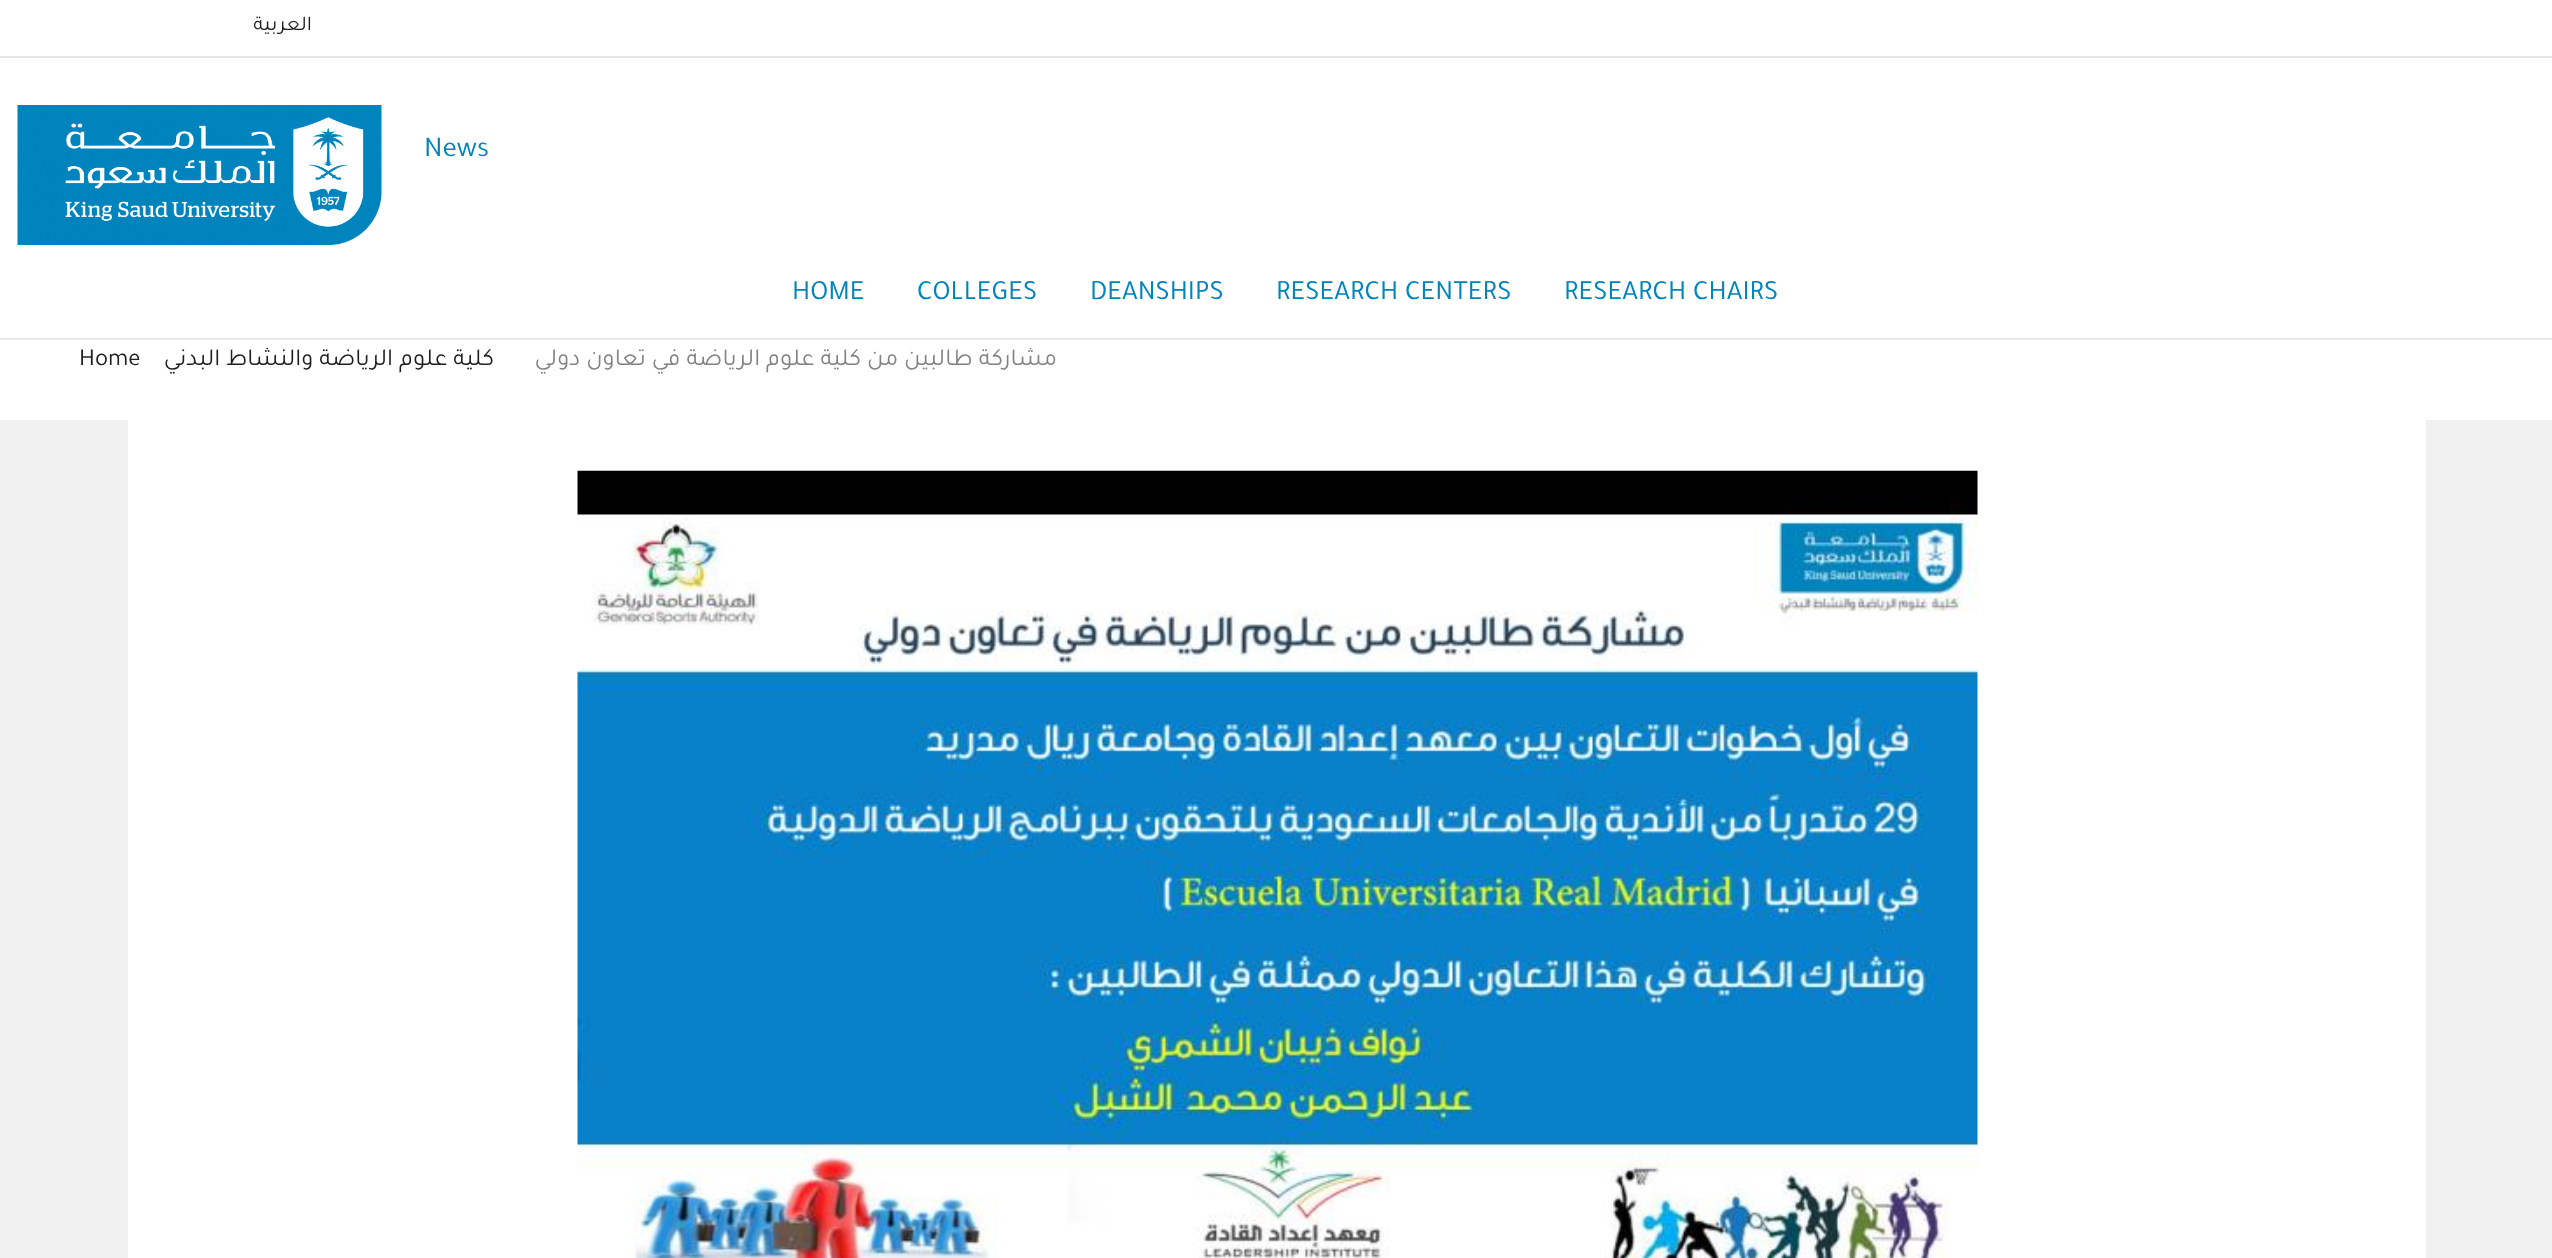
<svg xmlns="http://www.w3.org/2000/svg" width="2552" height="1258" viewBox="0 0 2552 1258">
  <rect width="100%" height="100%" fill="#fff"/>
  <path d="M0 420h2552v838H0z" fill="#f0f0f0"/>
  <rect x="128" y="194" width="2298" height="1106" rx="42" fill="#fff"/>
  <path d="M0 338h2552v2H0z" fill="#e6e6e6"/>
  <path d="M0 56h2552v2H0z" fill="#e7e7e7"/>
  <image x="17" y="105" width="365" height="140" href="img/1.png"/>
  <image x="577" y="470" width="1401" height="788" href="img/2.png"/>
  <text x="312" y="30" font-family="Tajawal" font-size="21" direction="rtl" fill="#1f1f1f">العربية</text>
  <text x="424" y="156" font-family="Tajawal" font-size="29" fill="#0084bd">News</text>
  <g font-family="Tajawal" font-size="28" fill="#0084bd">
    <text x="1564" y="299">RESEARCH CHAIRS</text>
    <text x="1276" y="299">RESEARCH CENTERS</text>
    <text x="1090" y="299">DEANSHIPS</text>
    <text x="917" y="299">COLLEGES</text>
    <text x="792" y="299">HOME</text>
  </g>
  <text x="1057" y="365" font-family="Tajawal" font-size="24.5" direction="rtl" fill="#828282">مشاركة طالبين من كلية علوم الرياضة في تعاون دولي</text>
  <text x="494" y="365" font-family="Tajawal" font-size="24.5" direction="rtl" fill="#1f1f1f">كلية علوم الرياضة والنشاط البدني</text>
  <text x="79" y="365" font-family="Tajawal" font-size="24.5" fill="#1f1f1f">Home</text>
</svg>
